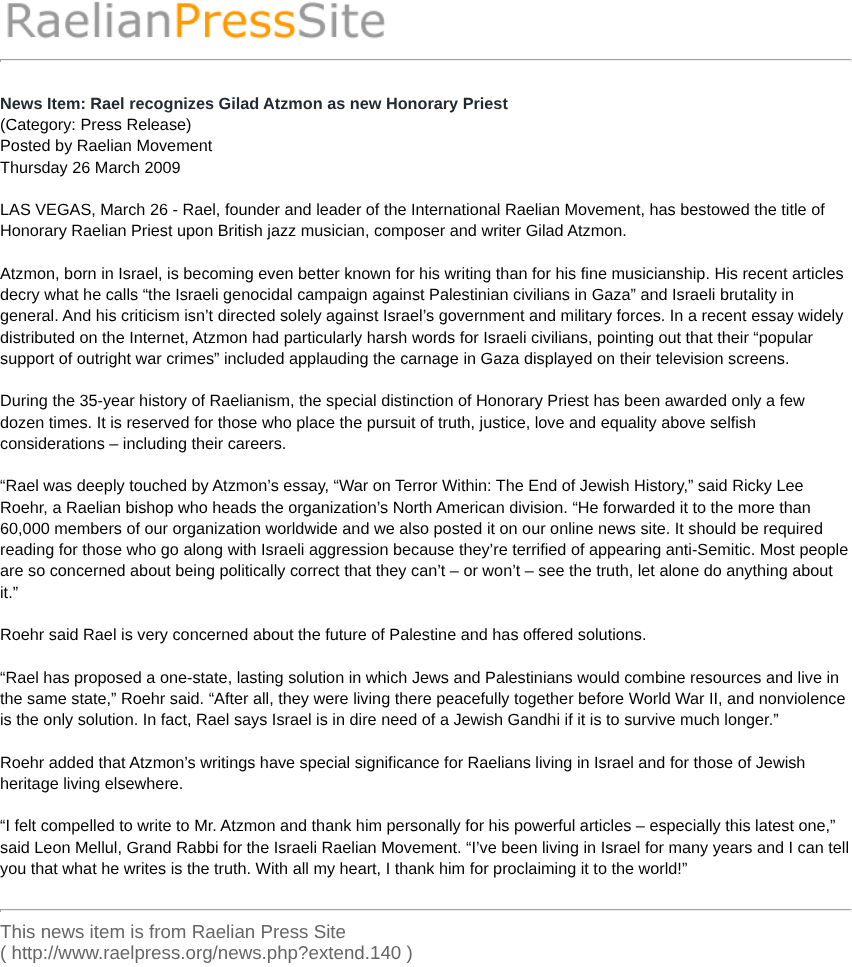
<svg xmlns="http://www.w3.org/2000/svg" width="852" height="967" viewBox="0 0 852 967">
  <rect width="100%" height="100%" fill="#fff"/>
  <image x="7" y="1" width="378" height="38" href="img/1.png"/>
  <path d="M0 59h852v1H0z" fill="#9f9f9f"/>
  <path d="M851 59h1v3H851z" fill="#eee"/>
  <path d="M0 60h852v1H0z" fill="#eee"/>
  <path d="M0 59h1v3H0z" fill="#9f9f9f"/>
  <path d="M0 909h852v1H0z" fill="#9f9f9f"/>
  <path d="M851 909h1v3H851z" fill="#eee"/>
  <path d="M0 910h852v1H0z" fill="#eee"/>
  <path d="M0 909h1v3H0z" fill="#9f9f9f"/>
  <text x="0" y="109" font-family="Liberation Sans" font-size="16.25" font-weight="bold" fill="#232930">News Item: Rael recognizes Gilad Atzmon as new Honorary Priest</text>
  <g font-family="Liberation Sans" font-size="16.25" fill="#000">
    <text x="0" y="130">(Category: Press Release)</text>
    <text x="0" y="151">Posted by Raelian Movement</text>
    <text x="0" y="173">Thursday 26 March 2009</text>
    <text x="0" y="215">LAS VEGAS, March 26 - Rael, founder and leader of the International Raelian Movement, has bestowed the title of</text>
    <text x="0" y="236">Honorary Raelian Priest upon British jazz musician, composer and writer Gilad Atzmon.</text>
    <text x="0" y="279">Atzmon, born in Israel, is becoming even better known for his writing than for his fine musicianship. His recent articles</text>
    <text x="0" y="300">decry what he calls “the Israeli genocidal campaign against Palestinian civilians in Gaza” and Israeli brutality in</text>
    <text x="0" y="321">general. And his criticism isn’t directed solely against Israel’s government and military forces. In a recent essay widely</text>
    <text x="0" y="343">distributed on the Internet, Atzmon had particularly harsh words for Israeli civilians, pointing out that their “popular</text>
    <text x="0" y="364">support of outright war crimes” included applauding the carnage in Gaza displayed on their television screens.</text>
    <text x="0" y="406">During the 35-year history of Raelianism, the special distinction of Honorary Priest has been awarded only a few</text>
    <text x="0" y="428">dozen times. It is reserved for those who place the pursuit of truth, justice, love and equality above selfish</text>
    <text x="0" y="449">considerations – including their careers.</text>
    <text x="0" y="491">“Rael was deeply touched by Atzmon’s essay, “War on Terror Within: The End of Jewish History,” said Ricky Lee</text>
    <text x="0" y="513">Roehr, a Raelian bishop who heads the organization’s North American division. “He forwarded it to the more than</text>
    <text x="0" y="534">60,000 members of our organization worldwide and we also posted it on our online news site. It should be required</text>
    <text x="0" y="555">reading for those who go along with Israeli aggression because they’re terrified of appearing anti-Semitic. Most people</text>
    <text x="0" y="576">are so concerned about being politically correct that they can’t – or won’t – see the truth, let alone do anything about</text>
    <text x="0" y="598">it.”</text>
    <text x="0" y="640">Roehr said Rael is very concerned about the future of Palestine and has offered solutions.</text>
    <text x="0" y="683">“Rael has proposed a one-state, lasting solution in which Jews and Palestinians would combine resources and live in</text>
    <text x="0" y="704">the same state,” Roehr said. “After all, they were living there peacefully together before World War II, and nonviolence</text>
    <text x="0" y="725">is the only solution. In fact, Rael says Israel is in dire need of a Jewish Gandhi if it is to survive much longer.”</text>
    <text x="0" y="768">Roehr added that Atzmon’s writings have special significance for Raelians living in Israel and for those of Jewish</text>
    <text x="0" y="789">heritage living elsewhere.</text>
    <text x="0" y="831">“I felt compelled to write to Mr. Atzmon and thank him personally for his powerful articles – especially this latest one,”</text>
    <text x="0" y="853">said Leon Mellul, Grand Rabbi for the Israeli Raelian Movement. “I’ve been living in Israel for many years and I can tell</text>
    <text x="0" y="874">you that what he writes is the truth. With all my heart, I thank him for proclaiming it to the world!”</text>
  </g>
  <g font-family="Liberation Sans" font-size="18.75" fill="#666">
    <text x="0" y="938">This news item is from Raelian Press Site</text>
    <text x="0" y="959">( http://www.raelpress.org/news.php?extend.140 )</text>
  </g>
</svg>
